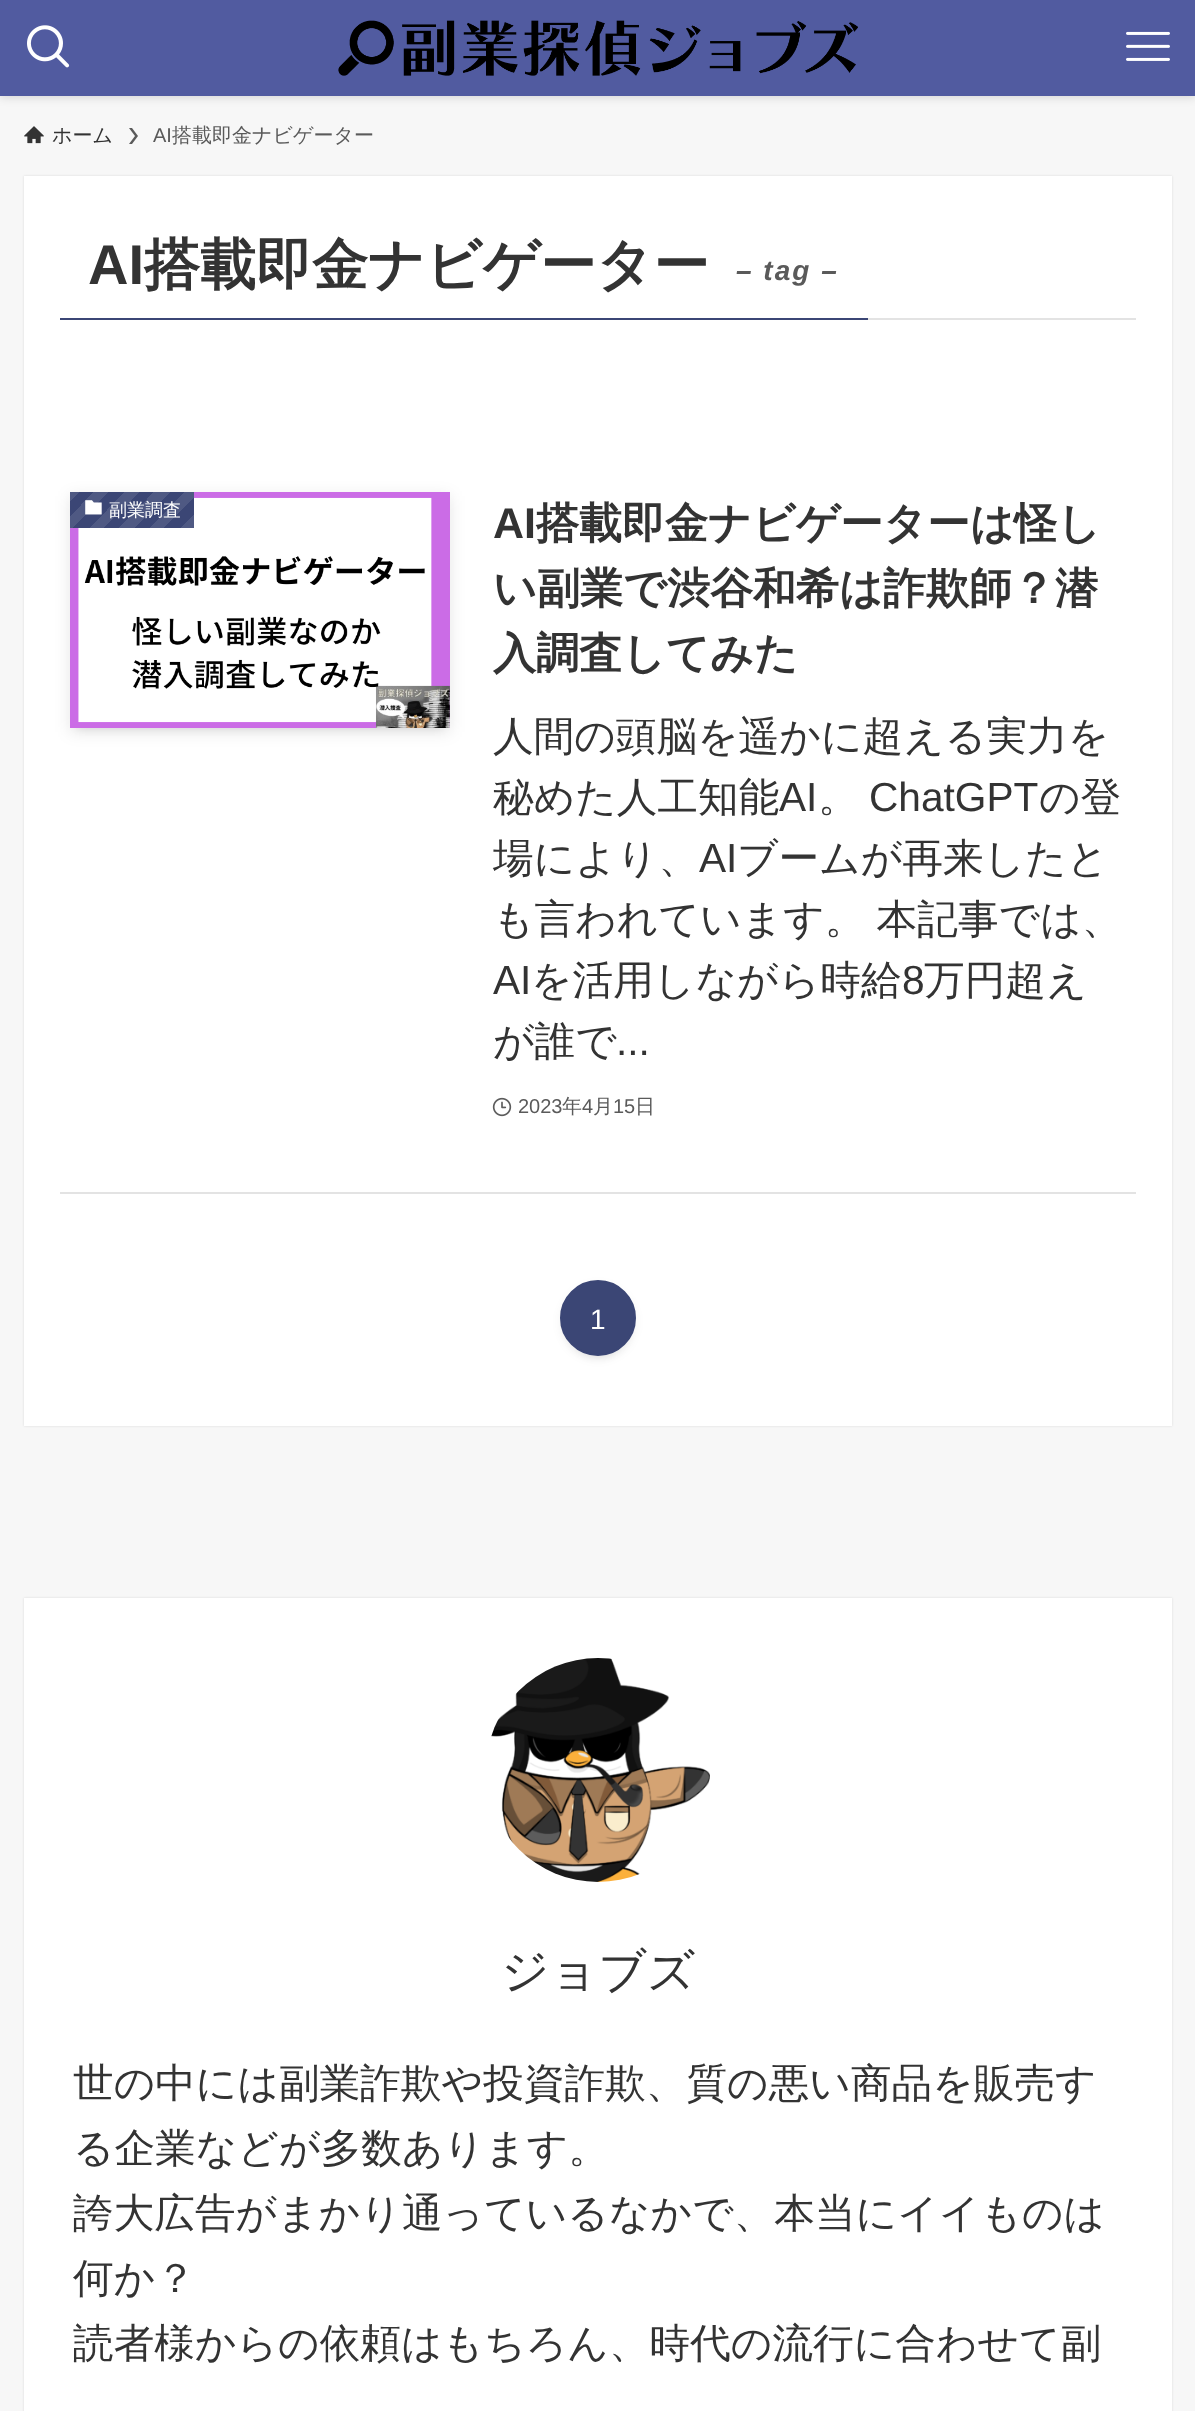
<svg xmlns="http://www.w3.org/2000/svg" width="1195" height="2411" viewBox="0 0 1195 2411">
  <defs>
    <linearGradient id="g1" gradientUnits="userSpaceOnUse" x1="173" y1="550" x2="81" y2="459"><stop offset="0" stop-color="#4f5983"/><stop offset="0.08" stop-color="#4f5983"/><stop offset="0.08" stop-color="#3b4675"/><stop offset="0.17" stop-color="#3b4675"/><stop offset="0.17" stop-color="#4f5983"/><stop offset="0.25" stop-color="#4f5983"/><stop offset="0.25" stop-color="#3b4675"/><stop offset="0.33" stop-color="#3b4675"/><stop offset="0.33" stop-color="#4f5983"/><stop offset="0.42" stop-color="#4f5983"/><stop offset="0.42" stop-color="#3b4675"/><stop offset="0.5" stop-color="#3b4675"/><stop offset="0.5" stop-color="#4f5983"/><stop offset="0.58" stop-color="#4f5983"/><stop offset="0.58" stop-color="#3b4675"/><stop offset="0.67" stop-color="#3b4675"/><stop offset="0.67" stop-color="#4f5983"/><stop offset="0.75" stop-color="#4f5983"/><stop offset="0.75" stop-color="#3b4675"/><stop offset="0.83" stop-color="#3b4675"/><stop offset="0.83" stop-color="#4f5983"/><stop offset="0.92" stop-color="#4f5983"/><stop offset="0.92" stop-color="#3b4675"/><stop offset="1" stop-color="#3b4675"/></linearGradient>
  </defs>
  <rect width="100%" height="100%" fill="#f7f7f7"/>
  <path d="M0 2h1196v96H0z" fill="#0000001f" filter="blur(4px)"/>
  <path d="M0 0h1195v96H0z" fill="#515ba0"/>
  <image x="27" y="25" width="43" height="43" href="img/1.png"/>
  <image x="338" y="20" width="520" height="56" href="img/2.png"/>
  <image x="1126" y="31" width="44" height="30" href="img/3.png"/>
  <image x="24" y="126" width="20" height="18" href="img/4.png"/>
  <path d="M132 128H129L135 136L129 144H132L138 136Z" fill="#5a5a5a"/>
  <path d="M24 176h1148v1250H24z" fill="#0000001f" filter="blur(1px)"/>
  <path d="M24 176h1148v1250H24z" fill="#fff"/>
  <path d="M868 318h268v2H868z" fill="#e3e3e3"/>
  <path d="M60 318h808v2H60z" fill="#3b4675"/>
  <path d="M60 1192h1076v2H60z" fill="#e3e3e3"/>
  <path d="M78 508h364v220H78z" fill="#0000001a" filter="blur(4px)"/>
  <path d="M70 496h380v236H70z" fill="#0000001a" filter="blur(8px)"/>
  <image x="70" y="492" width="380" height="236" href="img/5.png"/>
  <path d="M70 492h124v36H70z" fill="url(#g1)"/>
  <image x="85" y="500" width="17" height="15" href="img/6.png"/>
  <image x="492" y="1097" width="20" height="20" href="img/7.png"/>
  <rect x="568" y="1296" width="60" height="60" rx="30" fill="#0000001a" filter="blur(4px)"/>
  <rect x="560" y="1284" width="76" height="76" rx="38" fill="#0000000d" filter="blur(4px)"/>
  <circle cx="598" cy="1318" r="37" fill="#3b4675" stroke="#3b4675" stroke-width="2"/>
  <path d="M24 1598h1148v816H24z" fill="#0000001f" filter="blur(1px)"/>
  <path d="M24 1598h1148v813H24z" fill="#fff"/>
  <image x="491" y="1658" width="219" height="224" href="img/8.png"/>
  <text x="52" y="142" font-family="WenQuanYi Zen Hei" font-size="20" font-weight="500" fill="#333">ホーム</text>
  <text x="153" y="142" font-family="Liberation Sans" font-size="20" fill="#5a5a5a">AI</text>
  <text x="172" y="142" font-family="WenQuanYi Zen Hei" font-size="20" font-weight="500" fill="#5a5a5a">搭載即金ナビゲーター</text>
  <text x="88" y="284" font-family="Liberation Sans" font-size="56" font-weight="bold" fill="#333">AI</text>
  <text x="144" y="284" font-family="WenQuanYi Zen Hei" font-size="56" font-weight="bold" fill="#333">搭載即金ナビゲーター</text>
  <text x="736" y="280" font-family="Liberation Sans" font-size="28" font-weight="bold" font-style="italic" letter-spacing="2" fill="#5a5a5a">– tag –</text>
  <text x="109" y="516" font-family="WenQuanYi Zen Hei" font-size="18" font-weight="500" fill="#fff">副業調査</text>
  <text x="493" y="538" font-family="Liberation Sans" font-size="43" font-weight="bold" fill="#333">AI</text>
  <g font-family="WenQuanYi Zen Hei" font-size="43" font-weight="bold" fill="#333">
    <text x="536" y="538">搭載即金ナビゲーターは怪し</text>
    <text x="493" y="603">い副業で渋谷和希は詐欺師？潜</text>
    <text x="493" y="668">入調査してみた</text>
  </g>
  <g font-family="WenQuanYi Zen Hei" font-size="40.65" font-weight="500" fill="#333">
    <text x="493" y="750">人間の頭脳を遥かに超える実力を</text>
    <text x="493" y="811">秘めた人工知能</text>
  </g>
  <text x="779" y="811" font-family="Liberation Sans" font-size="40.65" fill="#333">AI</text>
  <text x="818" y="811" font-family="WenQuanYi Zen Hei" font-size="40.65" font-weight="500" fill="#333">。</text>
  <text x="869" y="811" font-family="Liberation Sans" font-size="40.65" fill="#333">ChatGPT</text>
  <g font-family="WenQuanYi Zen Hei" font-size="40.65" font-weight="500" fill="#333">
    <text x="1039" y="811">の登</text>
    <text x="493" y="872">場により、</text>
  </g>
  <text x="699" y="872" font-family="Liberation Sans" font-size="40.65" fill="#333">AI</text>
  <g font-family="WenQuanYi Zen Hei" font-size="40.65" font-weight="500" fill="#333">
    <text x="737" y="872">ブームが再来したと</text>
    <text x="493" y="933" word-spacing="-1">も言われています。 本記事では、</text>
  </g>
  <text x="493" y="994" font-family="Liberation Sans" font-size="40.65" fill="#333">AI</text>
  <text x="531" y="994" font-family="WenQuanYi Zen Hei" font-size="40.65" font-weight="500" fill="#333">を活用しながら時給</text>
  <text x="902" y="994" font-family="Liberation Sans" font-size="40.65" fill="#333">8</text>
  <g font-family="WenQuanYi Zen Hei" font-size="40.65" font-weight="500" fill="#333">
    <text x="924" y="994">万円超え</text>
    <text x="493" y="1055">が誰で</text>
  </g>
  <text x="616" y="1055" font-family="Liberation Sans" font-size="40.65" fill="#333">...</text>
  <text x="518" y="1113" font-family="Liberation Sans" font-size="20" fill="#5a5a5a">2023</text>
  <text x="562" y="1113" font-family="WenQuanYi Zen Hei" font-size="20" font-weight="500" fill="#5a5a5a">年</text>
  <text x="582" y="1113" font-family="Liberation Sans" font-size="20" fill="#5a5a5a">4</text>
  <text x="593" y="1113" font-family="WenQuanYi Zen Hei" font-size="20" font-weight="500" fill="#5a5a5a">月</text>
  <text x="613" y="1113" font-family="Liberation Sans" font-size="20" fill="#5a5a5a">15</text>
  <text x="635" y="1113" font-family="WenQuanYi Zen Hei" font-size="20" font-weight="500" fill="#5a5a5a">日</text>
  <text x="590" y="1329" font-family="Liberation Sans" font-size="28" fill="#fff">1</text>
  <text x="501" y="1987" font-family="WenQuanYi Zen Hei" font-size="47.5" font-weight="500" fill="#333">ジョブズ</text>
  <g font-family="WenQuanYi Zen Hei" font-size="40.65" font-weight="500" fill="#333">
    <text x="73" y="2097">世の中には副業詐欺や投資詐欺、質の悪い商品を販売す</text>
    <text x="73" y="2162">る企業などが多数あります。</text>
    <text x="73" y="2227">誇大広告がまかり通っているなかで、本当にイイものは</text>
    <text x="73" y="2292">何か？</text>
    <text x="73" y="2357">読者様からの依頼はもちろん、時代の流行に合わせて副</text>
  </g>
</svg>
